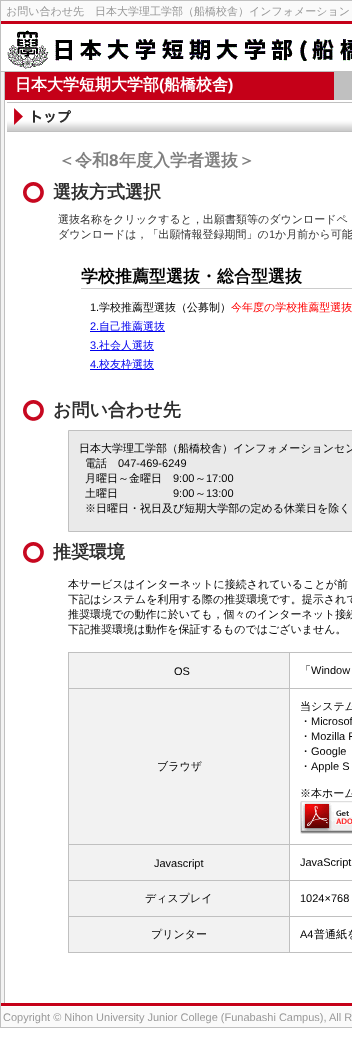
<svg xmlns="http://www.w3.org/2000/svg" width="352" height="1047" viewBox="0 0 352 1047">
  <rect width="100%" height="100%" fill="#fff"/>
  <path d="M0 0h352v1H0z" fill="#c0c0c0"/>
  <path d="M0 1027h352v1H0z" fill="#c0c0c0"/>
  <path d="M0 0h1v1028H0z" fill="#c0c0c0"/>
  <path d="M1 1h351v20H1z" fill="#fafafa"/>
  <path d="M1 21h351v3H1z" fill="#c50018"/>
  <image x="7" y="30" width="345" height="39" href="img/1.png"/>
  <path d="M1 71h351v1H1z" fill="#c0c0c0"/>
  <path d="M4 72h1v932H4z" fill="#c0c0c0"/>
  <path d="M1 72h3v931H1z" fill="#f3f3f3"/>
  <path d="M334 72h18v28H334z" fill="#c0c0c0"/>
  <path d="M5 72h329v28H5z" fill="#c50018"/>
  <image x="7" y="102" width="345" height="30" href="img/2.png"/>
  <image x="14" y="108" width="57" height="17" href="img/3.png"/>
  <image x="23" y="182" width="21" height="21" href="img/4.png"/>
  <path d="M81 288h271v1H81z" fill="#ccc"/>
  <path d="M90 331h75v1H90z" fill="#00e"/>
  <path d="M90 350h64v1H90z" fill="#00e"/>
  <path d="M90 369h64v1H90z" fill="#00e"/>
  <image x="23" y="400" width="21" height="21" href="img/4.png"/>
  <path d="M68.5 430.5h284v101H68.5z" fill="#eaeaea" stroke="#c0c0c0"/>
  <image x="23" y="542" width="21" height="21" href="img/4.png"/>
  <path d="M68 652h284v1H68z" fill="#c0c0c0"/>
  <path d="M68 952h284v1H68z" fill="#c0c0c0"/>
  <path d="M68 652h1v301H68z" fill="#c0c0c0"/>
  <path d="M69 653h220v35H69z" fill="#f2f2f2"/>
  <path d="M289 688h63v1H289z" fill="#c0c0c0"/>
  <path d="M289 844h63v1H289z" fill="#c0c0c0"/>
  <path d="M289 880h63v1H289z" fill="#c0c0c0"/>
  <path d="M289 916h63v1H289z" fill="#c0c0c0"/>
  <path d="M289 916h1v37H289z" fill="#c0c0c0"/>
  <path d="M68 916h222v1H68z" fill="#c0c0c0"/>
  <path d="M289 880h1v37H289z" fill="#c0c0c0"/>
  <path d="M68 880h222v1H68z" fill="#c0c0c0"/>
  <path d="M289 844h1v37H289z" fill="#c0c0c0"/>
  <path d="M68 844h222v1H68z" fill="#c0c0c0"/>
  <path d="M289 688h1v157H289z" fill="#c0c0c0"/>
  <path d="M68 688h222v1H68z" fill="#c0c0c0"/>
  <path d="M289 652h1v37H289z" fill="#c0c0c0"/>
  <path d="M69 689h220v155H69z" fill="#f2f2f2"/>
  <image x="300" y="801" width="52" height="33" href="img/5.png"/>
  <path d="M69 845h220v35H69z" fill="#f2f2f2"/>
  <path d="M69 881h220v35H69z" fill="#f2f2f2"/>
  <path d="M69 917h220v35H69z" fill="#f2f2f2"/>
  <path d="M1 1003h351v3H1z" fill="#c50018"/>
  <path d="M1 1007h351v20H1z" fill="#fafafa"/>
  <text x="6" y="15" font-family="WenQuanYi Zen Hei" font-size="11" font-weight="500" fill="#999">お問い合わせ先　日本大学理工学部（船橋校舎）インフォメーション</text>
  <text x="15" y="90" font-family="WenQuanYi Zen Hei" font-size="16" font-weight="bold" fill="#fff">日本大学短期大学部</text>
  <text x="159" y="90" font-family="Liberation Sans" font-size="16" font-weight="bold" fill="#fff">(</text>
  <text x="164" y="90" font-family="WenQuanYi Zen Hei" font-size="16" font-weight="bold" fill="#fff">船橋校舎</text>
  <text x="228" y="90" font-family="Liberation Sans" font-size="16" font-weight="bold" fill="#fff">)</text>
  <text x="58" y="166" font-family="WenQuanYi Zen Hei" font-size="17" font-weight="bold" fill="#808080">＜令和</text>
  <text x="109" y="166" font-family="Liberation Sans" font-size="17" font-weight="bold" fill="#808080">8</text>
  <text x="119" y="166" font-family="WenQuanYi Zen Hei" font-size="17" font-weight="bold" fill="#808080">年度入学者選抜＞</text>
  <text x="53" y="198" font-family="WenQuanYi Zen Hei" font-size="18" font-weight="bold" fill="#2d2d2d">選抜方式選択</text>
  <g font-family="WenQuanYi Zen Hei" font-size="11" font-weight="500" fill="#333">
    <text x="58" y="223">選抜名称をクリックすると，出願書類等のダウンロードペ</text>
    <text x="58" y="238">ダウンロードは，「出願情報登録期間」の</text>
  </g>
  <text x="269" y="238" font-family="Liberation Sans" font-size="11" fill="#333">1</text>
  <text x="275" y="238" font-family="WenQuanYi Zen Hei" font-size="11" font-weight="500" fill="#333">か月前から可能</text>
  <text x="81" y="282" font-family="WenQuanYi Zen Hei" font-size="17" font-weight="bold" fill="#000">学校推薦型選抜・総合型選抜</text>
  <text x="90" y="311" font-family="Liberation Sans" font-size="11" fill="#000">1.</text>
  <text x="99" y="311" font-family="WenQuanYi Zen Hei" font-size="11" font-weight="500" fill="#000">学校推薦型選抜（公募制）</text>
  <text x="231" y="311" font-family="WenQuanYi Zen Hei" font-size="11" font-weight="500" fill="#f00">今年度の学校推薦型選抜</text>
  <text x="90" y="330" font-family="Liberation Sans" font-size="11" fill="#00e">2.</text>
  <text x="99" y="330" font-family="WenQuanYi Zen Hei" font-size="11" font-weight="500" fill="#00e">自己推薦選抜</text>
  <text x="90" y="349" font-family="Liberation Sans" font-size="11" fill="#00e">3.</text>
  <text x="99" y="349" font-family="WenQuanYi Zen Hei" font-size="11" font-weight="500" fill="#00e">社会人選抜</text>
  <text x="90" y="368" font-family="Liberation Sans" font-size="11" fill="#00e">4.</text>
  <text x="99" y="368" font-family="WenQuanYi Zen Hei" font-size="11" font-weight="500" fill="#00e">校友枠選抜</text>
  <text x="53" y="416" font-family="WenQuanYi Zen Hei" font-size="18" font-weight="bold" fill="#2d2d2d">お問い合わせ先</text>
  <g font-family="WenQuanYi Zen Hei" font-size="11" font-weight="500" fill="#000">
    <text x="79" y="452">日本大学理工学部（船橋校舎）インフォメーションセン</text>
    <text x="85" y="467">電話</text>
  </g>
  <text x="118" y="467" font-family="Liberation Sans" font-size="11" fill="#000">047-469-6249</text>
  <text x="85" y="482" font-family="WenQuanYi Zen Hei" font-size="11" font-weight="500" fill="#000">月曜日～金曜日</text>
  <text x="173" y="482" font-family="Liberation Sans" font-size="11" fill="#000">9:00</text>
  <text x="195" y="482" font-family="WenQuanYi Zen Hei" font-size="11" font-weight="500" fill="#000">～</text>
  <text x="206" y="482" font-family="Liberation Sans" font-size="11" fill="#000">17:00</text>
  <text x="85" y="497" font-family="WenQuanYi Zen Hei" font-size="11" font-weight="500" fill="#000">土曜日</text>
  <text x="173" y="497" font-family="Liberation Sans" font-size="11" fill="#000">9:00</text>
  <text x="195" y="497" font-family="WenQuanYi Zen Hei" font-size="11" font-weight="500" fill="#000">～</text>
  <text x="206" y="497" font-family="Liberation Sans" font-size="11" fill="#000">13:00</text>
  <text x="85" y="512" font-family="WenQuanYi Zen Hei" font-size="11" font-weight="500" fill="#000">※日曜日・祝日及び短期大学部の定める休業日を除く</text>
  <text x="53" y="558" font-family="WenQuanYi Zen Hei" font-size="18" font-weight="bold" fill="#2d2d2d">推奨環境</text>
  <g font-family="WenQuanYi Zen Hei" font-size="11" font-weight="500" fill="#000">
    <text x="68" y="588">本サービスはインターネットに接続されていることが前</text>
    <text x="68" y="603">下記はシステムを利用する際の推奨環境です。提示されて</text>
    <text x="68" y="618">推奨環境での動作に於いても，個々のインターネット接続</text>
    <text x="68" y="633">下記推奨環境は動作を保証するものではございません。</text>
  </g>
  <text x="174" y="675" font-family="Liberation Sans" font-size="11" fill="#000">OS</text>
  <text x="300" y="674" font-family="WenQuanYi Zen Hei" font-size="11" font-weight="500" fill="#000">「</text>
  <text x="311" y="674" font-family="Liberation Sans" font-size="11" fill="#000">Window</text>
  <g font-family="WenQuanYi Zen Hei" font-size="11" font-weight="500" fill="#000">
    <text x="157" y="770">ブラウザ</text>
    <text x="300" y="710">当システム</text>
    <text x="300" y="725">・</text>
  </g>
  <text x="311" y="725" font-family="Liberation Sans" font-size="11" fill="#000">Microsof</text>
  <text x="300" y="740" font-family="WenQuanYi Zen Hei" font-size="11" font-weight="500" fill="#000">・</text>
  <text x="311" y="740" font-family="Liberation Sans" font-size="11" fill="#000">Mozilla F</text>
  <text x="300" y="755" font-family="WenQuanYi Zen Hei" font-size="11" font-weight="500" fill="#000">・</text>
  <text x="311" y="755" font-family="Liberation Sans" font-size="11" fill="#000">Google</text>
  <text x="300" y="770" font-family="WenQuanYi Zen Hei" font-size="11" font-weight="500" fill="#000">・</text>
  <text x="311" y="770" font-family="Liberation Sans" font-size="11" fill="#000">Apple S</text>
  <text x="300" y="797" font-family="WenQuanYi Zen Hei" font-size="11" font-weight="500" fill="#000">※本ホーム</text>
  <g font-family="Liberation Sans" font-size="11" fill="#000">
    <text x="154" y="867">Javascript</text>
    <text x="300" y="866">JavaScript</text>
  </g>
  <text x="145" y="902" font-family="WenQuanYi Zen Hei" font-size="11" font-weight="500" fill="#000">ディスプレイ</text>
  <text x="300" y="902" font-family="Liberation Sans" font-size="11" fill="#000">1024×768</text>
  <text x="151" y="938" font-family="WenQuanYi Zen Hei" font-size="11" font-weight="500" fill="#000">プリンター</text>
  <text x="300" y="938" font-family="Liberation Sans" font-size="11" fill="#000">A4</text>
  <text x="314" y="938" font-family="WenQuanYi Zen Hei" font-size="11" font-weight="500" fill="#000">普通紙を</text>
  <text x="3" y="1021" font-family="Liberation Sans" font-size="11" fill="#999">Copyright © Nihon University Junior College (Funabashi Campus), All R</text>
</svg>
